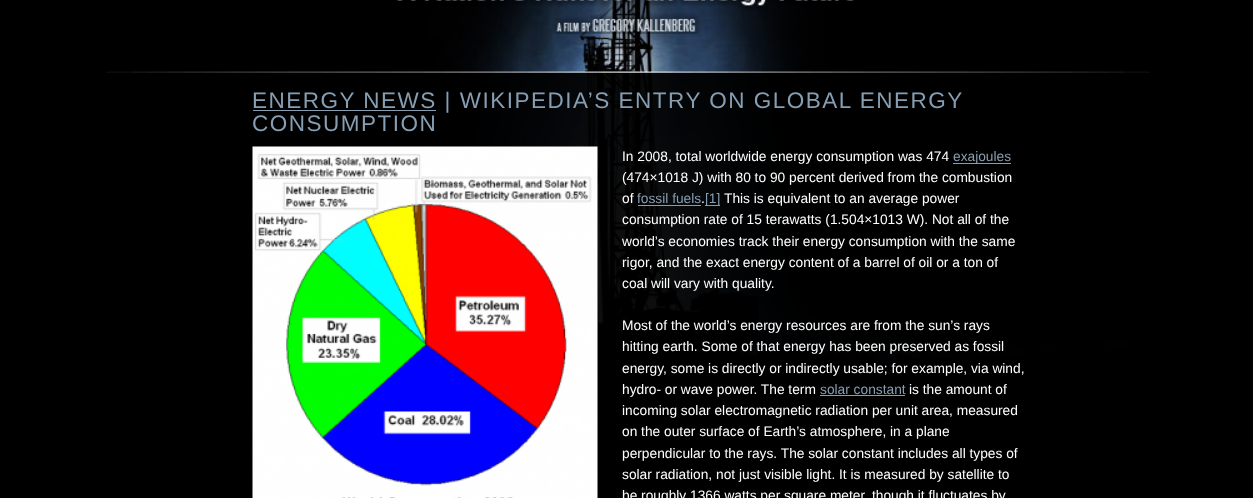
<svg xmlns="http://www.w3.org/2000/svg" width="1253" height="498" viewBox="0 0 1253 498">
  <rect width="100%" height="100%" fill="#000"/>
  <image x="208" y="0" width="964" height="380" href="img/1.png"/>
  <image x="397" y="0" width="457" height="34" href="img/2.png"/>
  <image x="106" y="71" width="1066" height="309" href="img/3.png"/>
  <path d="M253 110h183v1H253z" fill="#879eb2"/>
  <image x="252" y="146" width="346" height="352" href="img/4.png"/>
  <path d="M953 163h58v1H953z" fill="#879eb2"/>
  <path d="M638 205h63v1H638z" fill="#879eb2"/>
  <path d="M705 205h15v1H705z" fill="#879eb2"/>
  <path d="M820 395h85v1H820z" fill="#879eb2"/>
  <g font-family="Liberation Sans" font-size="22.5" letter-spacing="1.5" fill="#879eb2">
    <text x="252" y="108">ENERGY NEWS | WIKIPEDIA’S ENTRY ON GLOBAL ENERGY</text>
    <text x="252" y="131">CONSUMPTION</text>
  </g>
  <text x="622" y="161" font-family="Liberation Sans" font-size="13.75" fill="#fff">In 2008, total worldwide energy consumption was 474</text>
  <text x="953" y="161" font-family="Liberation Sans" font-size="13.75" fill="#879eb2">exajoules</text>
  <g font-family="Liberation Sans" font-size="13.75" fill="#fff">
    <text x="622" y="182">(474×1018 J) with 80 to 90 percent derived from the combustion</text>
    <text x="622" y="203">of</text>
  </g>
  <text x="637" y="203" font-family="Liberation Sans" font-size="13.75" fill="#879eb2">fossil fuels</text>
  <text x="701" y="203" font-family="Liberation Sans" font-size="13.75" fill="#fff">.</text>
  <text x="705" y="203" font-family="Liberation Sans" font-size="13.75" fill="#879eb2">[1]</text>
  <g font-family="Liberation Sans" font-size="13.75" fill="#fff">
    <text x="724" y="203">This is equivalent to an average power</text>
    <text x="622" y="224">consumption rate of 15 terawatts (1.504×1013 W). Not all of the</text>
    <text x="622" y="246">world’s economies track their energy consumption with the same</text>
    <text x="622" y="267">rigor, and the exact energy content of a barrel of oil or a ton of</text>
    <text x="622" y="288">coal will vary with quality.</text>
    <text x="622" y="330">Most of the world’s energy resources are from the sun’s rays</text>
    <text x="622" y="351">hitting earth. Some of that energy has been preserved as fossil</text>
    <text x="622" y="373">energy, some is directly or indirectly usable; for example, via wind,</text>
    <text x="622" y="394">hydro- or wave power. The term</text>
  </g>
  <text x="820" y="394" font-family="Liberation Sans" font-size="13.75" fill="#879eb2">solar constant</text>
  <g font-family="Liberation Sans" font-size="13.75" fill="#fff">
    <text x="909" y="394">is the amount of</text>
    <text x="622" y="415">incoming solar electromagnetic radiation per unit area, measured</text>
    <text x="622" y="436">on the outer surface of Earth’s atmosphere, in a plane</text>
    <text x="622" y="458">perpendicular to the rays. The solar constant includes all types of</text>
    <text x="622" y="479">solar radiation, not just visible light. It is measured by satellite to</text>
    <text x="622" y="500">be roughly 1366 watts per square meter, though it fluctuates by</text>
  </g>
</svg>
